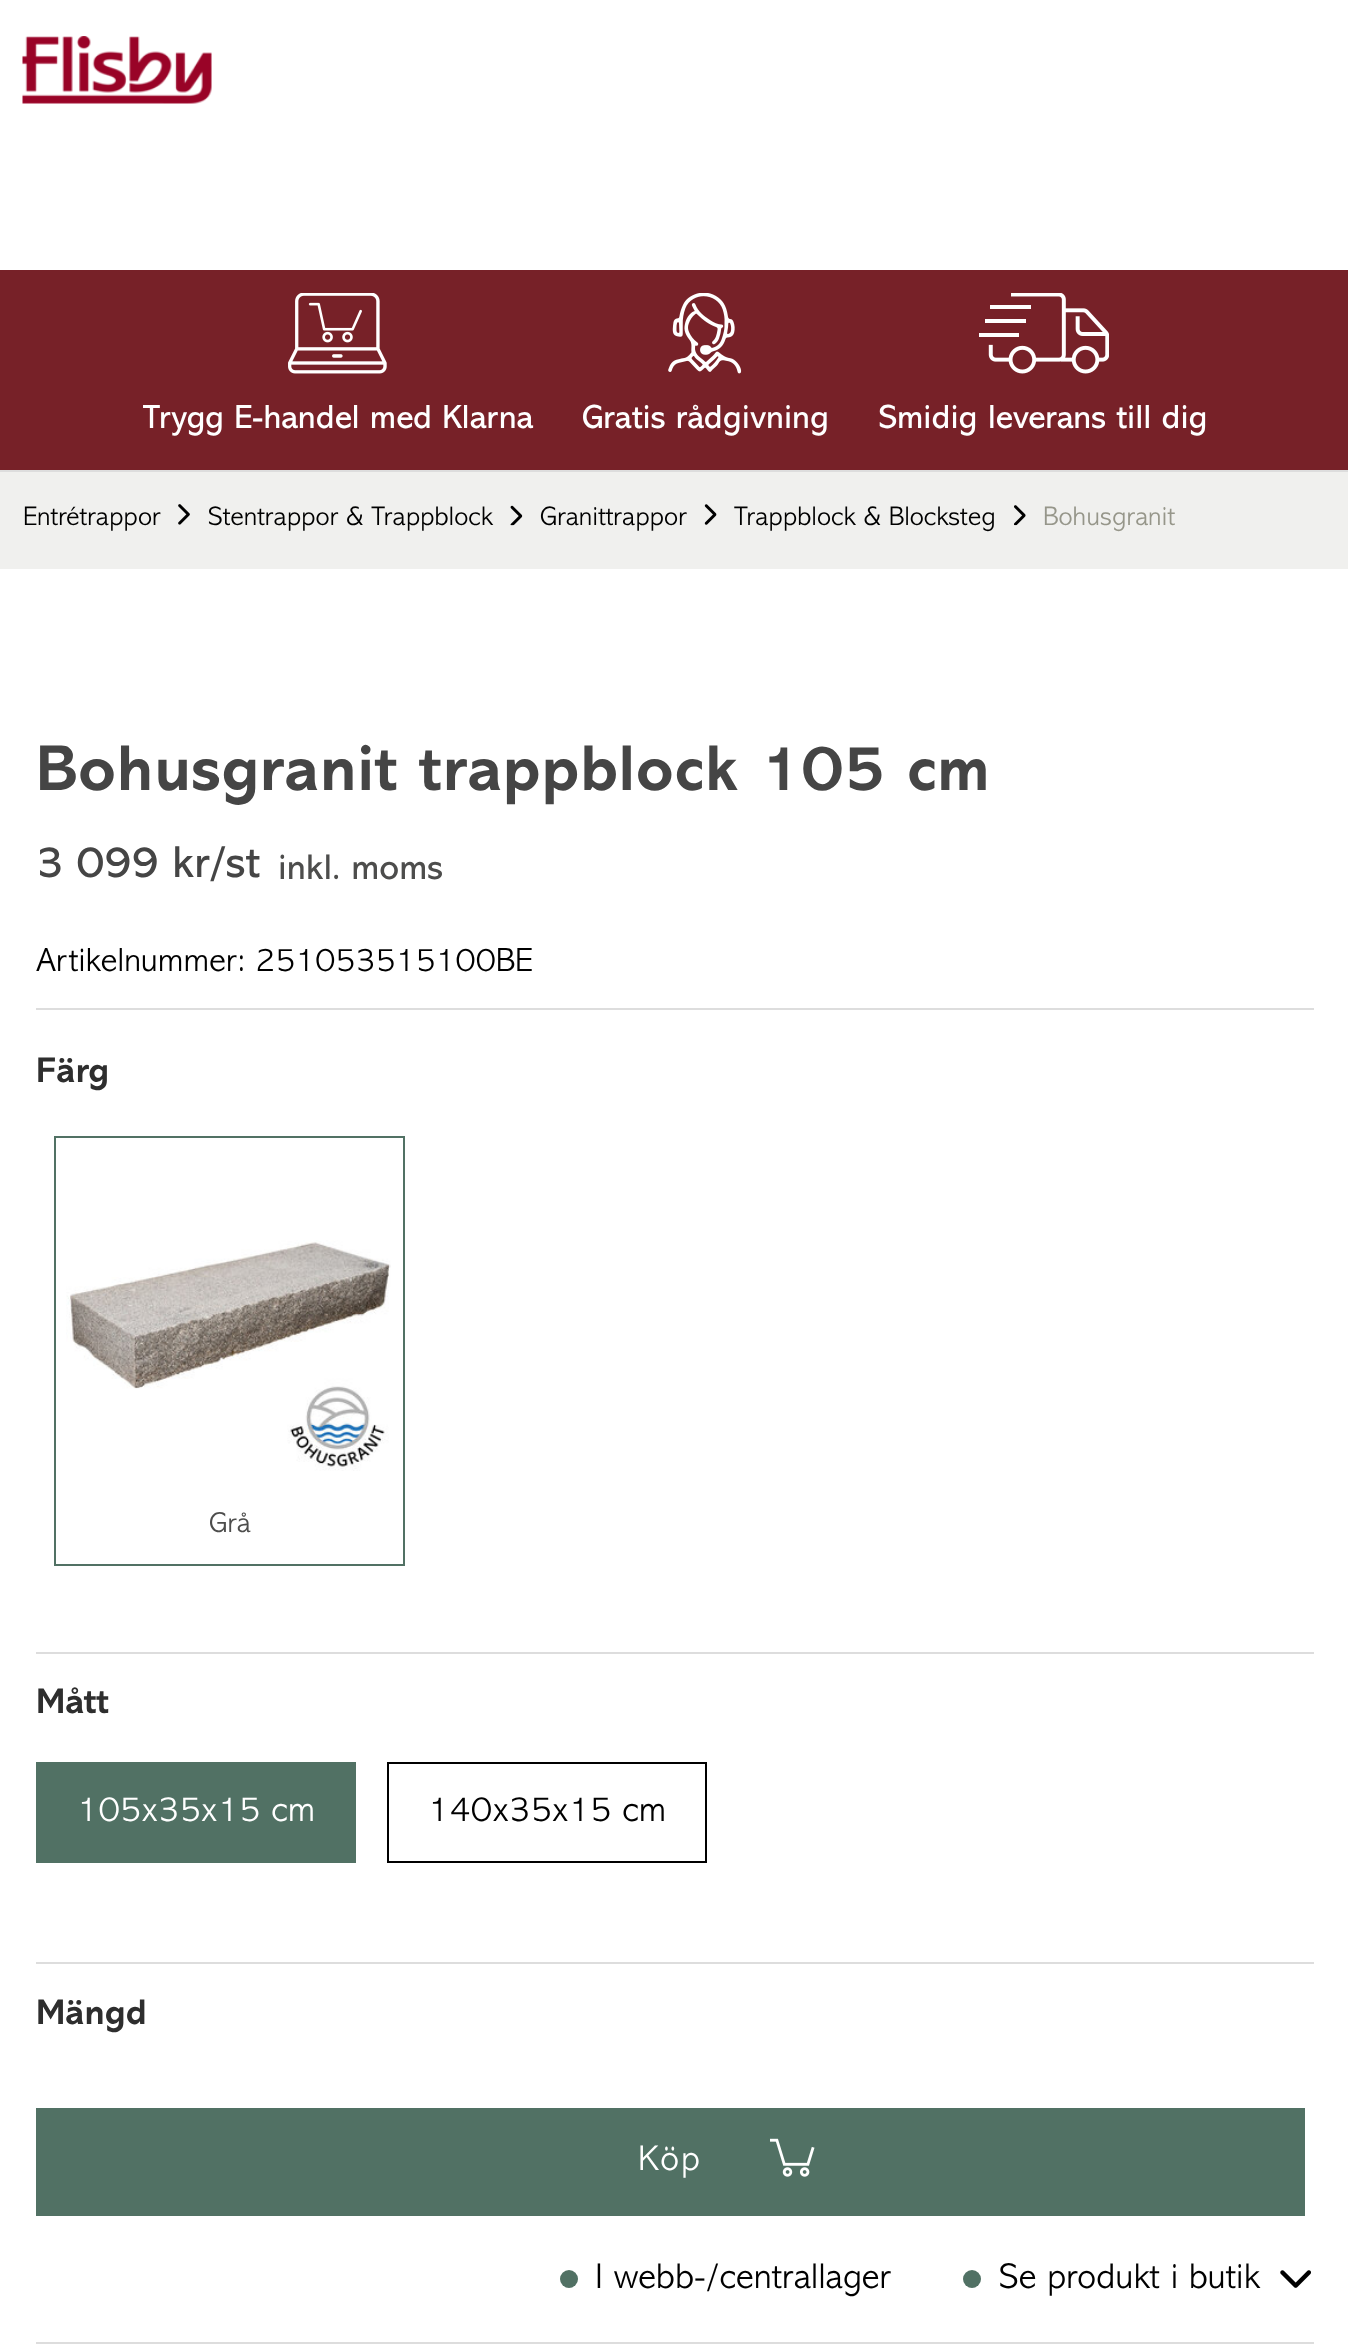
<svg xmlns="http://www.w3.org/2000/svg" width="1348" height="2349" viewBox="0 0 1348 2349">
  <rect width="100%" height="100%" fill="#fff"/>
  <image x="22" y="36" width="190" height="68" href="img/1.png"/>
  <path d="M0 270h1348v200H0z" fill="#772128"/>
  <image x="288" y="293" width="99" height="81" href="img/2.png"/>
  <image x="668" y="293" width="74" height="81" href="img/3.png"/>
  <image x="979" y="293" width="130" height="81" href="img/4.png"/>
  <path d="M0 472h1348v97H0z" fill="#f0f0ee"/>
  <path d="M0 470h1348v2H0z" fill="#ddd"/>
  <image x="178" y="504" width="12" height="21" href="img/5.png"/>
  <image x="510" y="505" width="13" height="21" href="img/6.png"/>
  <image x="704" y="504" width="13" height="21" href="img/7.png"/>
  <image x="1014" y="505" width="12" height="21" href="img/8.png"/>
  <path d="M36 1008h1278v2H36z" fill="#ddd"/>
  <path d="M55 1137h349v428H55z" fill="none" stroke="#517164" stroke-width="2"/>
  <image x="66" y="1240" width="325" height="231" href="img/9.png"/>
  <path d="M36 1652h1278v2H36z" fill="#ddd"/>
  <path d="M36 1762h320v101H36z" fill="#517164"/>
  <path d="M388 1763h318v99H388z" fill="none" stroke="#000" stroke-width="2"/>
  <path d="M36 1962h1278v2H36z" fill="#ddd"/>
  <path d="M36 2108h1269v108H36z" fill="#517164"/>
  <image x="770" y="2138" width="45" height="39" href="img/10.png"/>
  <circle cx="569" cy="2279" r="9" fill="#517164"/>
  <circle cx="972" cy="2279" r="9" fill="#517164"/>
  <image x="1280" y="2270" width="31" height="18" href="img/11.png"/>
  <path d="M36 2342h1278v2H36z" fill="#ddd"/>
  <g font-family="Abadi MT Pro" font-size="33.75" fill="#fff">
    <text x="143" y="428">Trygg E-handel med Klarna</text>
    <text x="582" y="428">Gratis rådgivning</text>
    <text x="879" y="428">Smidig leverans till dig</text>
  </g>
  <g font-family="Abadi MT Pro" font-size="27" font-weight="300" fill="#000">
    <text x="23" y="525">Entrétrappor</text>
    <text x="208" y="525">Stentrappor &amp; Trappblock</text>
    <text x="540" y="525">Granittrappor</text>
    <text x="734" y="525">Trappblock &amp; Blocksteg</text>
  </g>
  <text x="1043" y="525" font-family="Abadi MT Pro" font-size="27" font-weight="300" fill="#96968a">Bohusgranit</text>
  <text x="36" y="790" font-family="Abadi MT Pro" font-size="65.25" font-weight="bold" letter-spacing="0.65" fill="#454545">Bohusgranit trappblock 105 cm</text>
  <text x="36" y="877" font-family="Abadi MT Pro" font-size="45" fill="#454545">3 099 kr/st</text>
  <text x="278" y="879" font-family="Abadi MT Pro" font-size="36" fill="#4d4d4c">inkl. moms</text>
  <text x="36" y="971" font-family="Abadi MT Pro" font-size="33.75" font-weight="300" fill="#000">Artikelnummer: 251053515100BE</text>
  <text x="36" y="1082" font-family="Abadi MT Pro" font-size="36" font-weight="bold" fill="#2e2e2e">Färg</text>
  <text x="209" y="1532" font-family="Abadi MT Pro" font-size="29" font-weight="300" fill="#4d4d4c">Grå</text>
  <text x="36" y="1713" font-family="Abadi MT Pro" font-size="36" font-weight="bold" fill="#2e2e2e">Mått</text>
  <text x="77" y="1821" font-family="Abadi MT Pro" font-size="36" font-weight="300" fill="#fff">105x35x15 cm</text>
  <text x="428" y="1821" font-family="Abadi MT Pro" font-size="36" font-weight="300" fill="#000">140x35x15 cm</text>
  <text x="36" y="2024" font-family="Abadi MT Pro" font-size="36" font-weight="bold" fill="#2e2e2e">Mängd</text>
  <text x="638" y="2170" font-family="Abadi MT Pro" font-size="36" font-weight="300" letter-spacing="2" fill="#fff">Köp</text>
  <g font-family="Abadi MT Pro" font-size="36" font-weight="300" fill="#000">
    <text x="595" y="2288">I webb-/centrallager</text>
    <text x="999" y="2288">Se produkt i butik</text>
  </g>
</svg>
